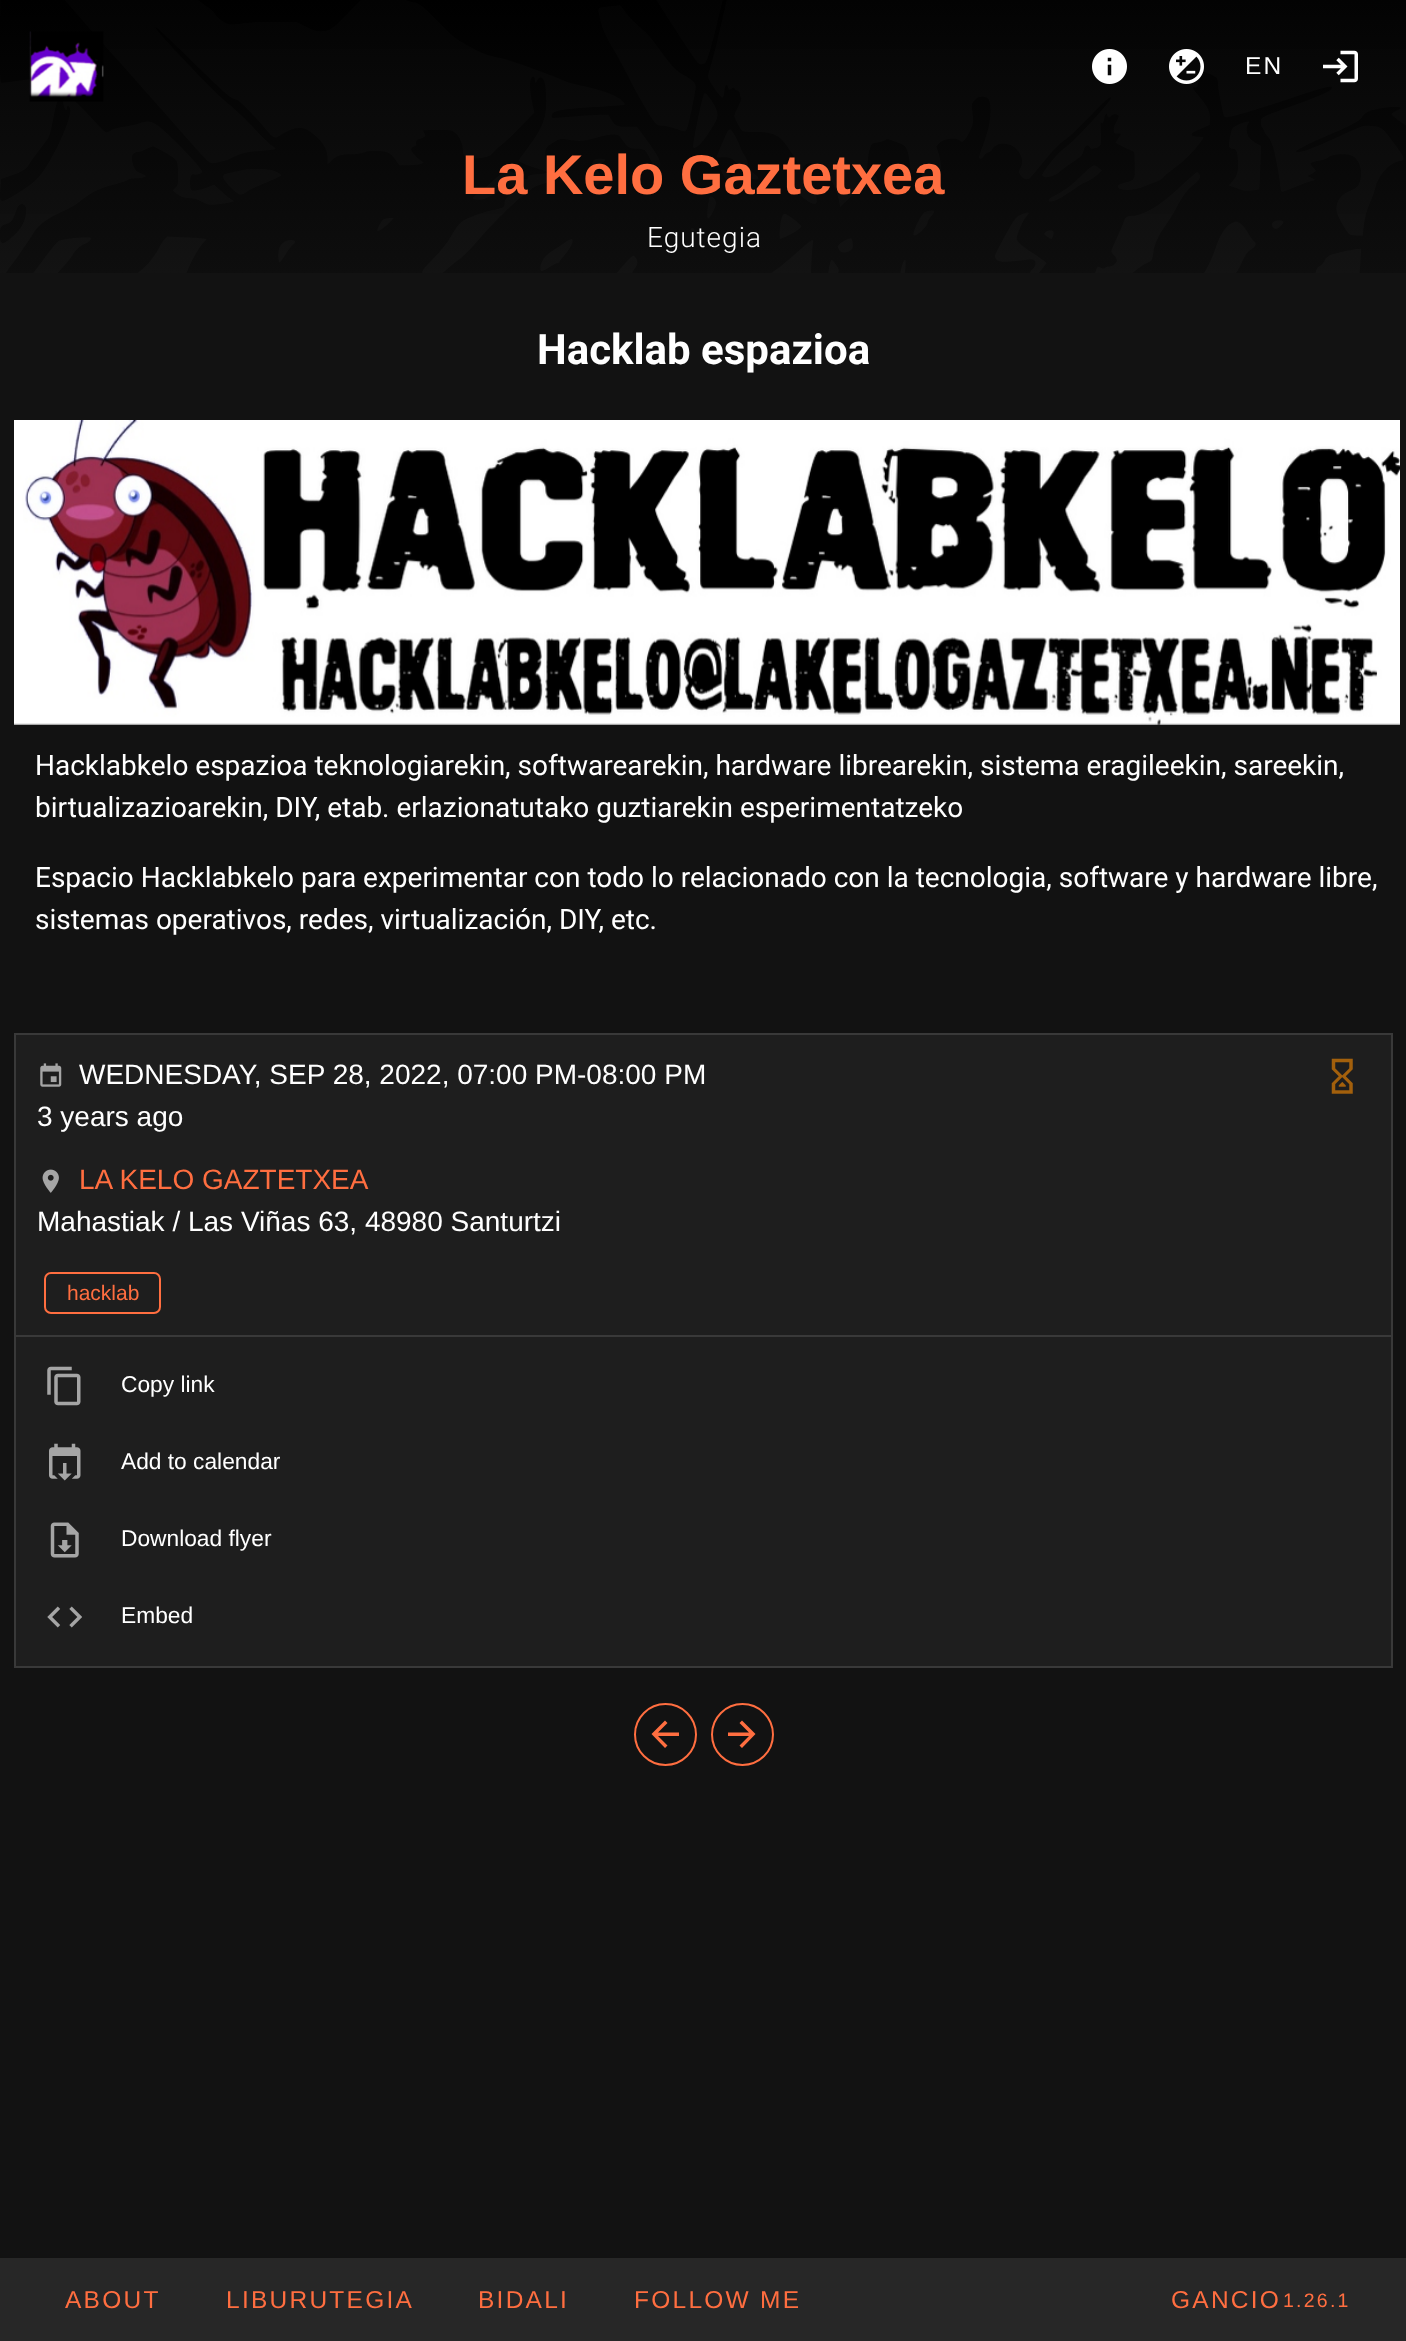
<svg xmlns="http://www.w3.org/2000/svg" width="1406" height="2341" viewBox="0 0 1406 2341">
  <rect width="100%" height="100%" fill="#121212"/>
  <image x="0" y="0" width="1406" height="273" href="img/1.png"/>
  <image x="29" y="31" width="75" height="71" href="img/2.png"/>
  <image x="1092" y="49" width="35" height="35" href="img/3.png"/>
  <image x="1169" y="49" width="35" height="35" href="img/4.png"/>
  <image x="1323" y="50" width="35" height="33" href="img/5.png"/>
  <image x="14" y="420" width="1386" height="305" href="img/6.png"/>
  <path d="M15 1034h1377v633H15z" fill="#1e1e1e" stroke="#393939" stroke-width="2"/>
  <image x="40" y="1063" width="22" height="24" href="img/7.png"/>
  <image x="1331" y="1058" width="22" height="36" href="img/8.png"/>
  <image x="42" y="1169" width="17" height="24" href="img/9.png"/>
  <rect x="45" y="1273" width="115" height="40" rx="6" fill="none" stroke="#ff6e40" stroke-width="2"/>
  <path d="M16 1335h1375v2H16z" fill="#393939"/>
  <image x="47" y="1366" width="34" height="40" href="img/10.png"/>
  <image x="49" y="1443" width="32" height="38" href="img/11.png"/>
  <image x="50" y="1522" width="29" height="36" href="img/12.png"/>
  <image x="47" y="1606" width="35" height="22" href="img/13.png"/>
  <circle cx="665.5" cy="1734.5" r="30.5" fill="none" stroke="#ff6e40" stroke-width="2"/>
  <path d="M679 1732.5V1736H658L667.5 1745.5L665 1748L651.5 1734L665 1720.5L667.5 1723L658 1732.5Z" fill="#ff6e40"/>
  <circle cx="742.5" cy="1734.5" r="30.5" fill="none" stroke="#ff6e40" stroke-width="2"/>
  <path d="M728 1732.5V1736H749L739.5 1745.5L742 1748L755.5 1734L742 1720.5L739.5 1723L749 1732.5Z" fill="#ff6e40"/>
  <path d="M0 2258h1406v83H0z" fill="#272727"/>
  <text x="1245" y="74" font-family="Liberation Sans" font-size="24.5" letter-spacing="2.25" fill="#fff">EN</text>
  <text x="462" y="194" font-family="Liberation Sans" font-size="56" font-weight="bold" fill="#ff6e40">La Kelo Gaztetxea</text>
  <text x="647" y="247" font-family="Roboto" font-size="28" font-weight="300" letter-spacing="1" fill="#fff">Egutegia</text>
  <text x="537" y="364" font-family="Roboto" font-size="42" font-weight="bold" fill="#fff">Hacklab espazioa</text>
  <g font-family="Roboto" font-size="28" fill="#fff">
    <text x="35" y="775">Hacklabkelo espazioa teknologiarekin, softwarearekin, hardware librearekin, sistema eragileekin, sareekin,</text>
    <text x="35" y="817">birtualizazioarekin, DIY, etab. erlazionatutako guztiarekin esperimentatzeko</text>
    <text x="35" y="887">Espacio Hacklabkelo para experimentar con todo lo relacionado con la tecnologia, software y hardware libre,</text>
    <text x="35" y="929">sistemas operativos, redes, virtualización, DIY, etc.</text>
  </g>
  <g font-family="Liberation Sans" font-size="28" fill="#fff">
    <text x="79" y="1084">WEDNESDAY, SEP 28, 2022, 07:00 PM-08:00 PM</text>
    <text x="37" y="1126">3 years ago</text>
  </g>
  <text x="79" y="1189" font-family="Liberation Sans" font-size="28" fill="#ff6e40">LA KELO GAZTETXEA</text>
  <text x="37" y="1231" font-family="Liberation Sans" font-size="28" fill="#fff">Mahastiak / Las Viñas 63, 48980 Santurtzi</text>
  <text x="67" y="1300" font-family="Liberation Sans" font-size="21" fill="#ff6e40">hacklab</text>
  <g font-family="Liberation Sans" font-size="22.75" fill="#fff">
    <text x="121" y="1392">Copy link</text>
    <text x="121" y="1469">Add to calendar</text>
    <text x="121" y="1546">Download flyer</text>
    <text x="121" y="1623">Embed</text>
  </g>
  <g font-family="Liberation Sans" font-size="24.5" letter-spacing="2.25" fill="#ff6e40">
    <text x="65" y="2308">ABOUT</text>
    <text x="226" y="2308">LIBURUTEGIA</text>
    <text x="478" y="2308">BIDALI</text>
    <text x="634" y="2308">FOLLOW ME</text>
    <text x="1171" y="2308">GANCIO</text>
  </g>
  <text x="1283" y="2307" font-family="Liberation Sans" font-size="19.5" letter-spacing="2.25" fill="#ff6e40">1.26.1</text>
</svg>
